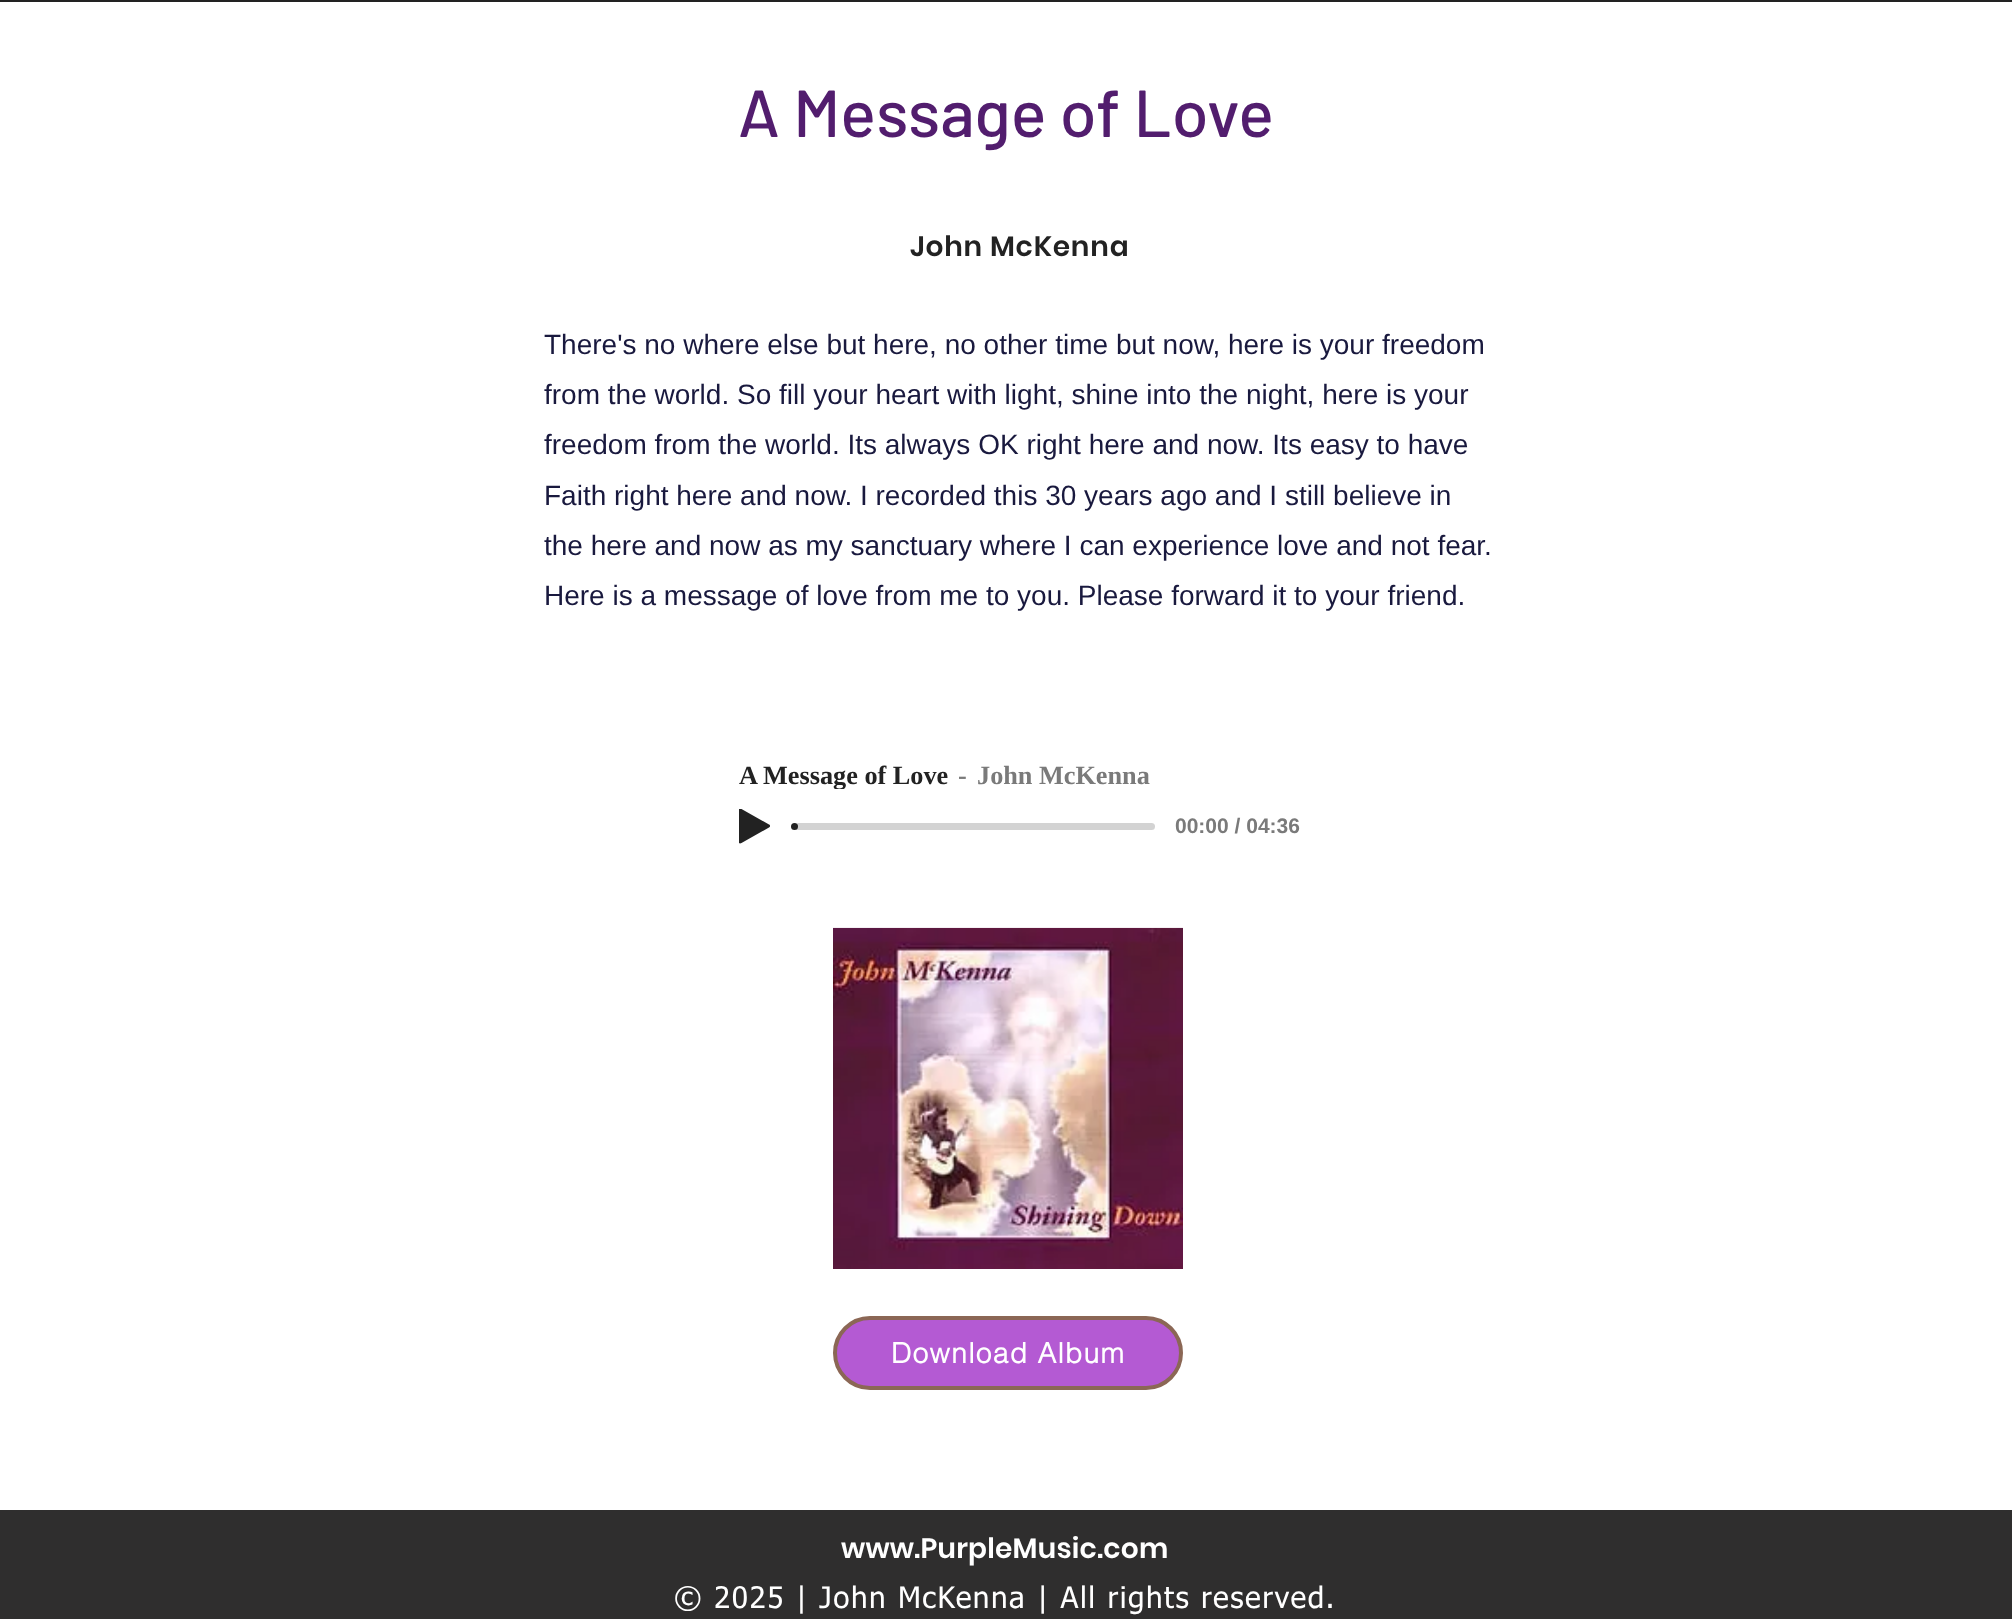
<svg xmlns="http://www.w3.org/2000/svg" width="2012" height="1619" viewBox="0 0 2012 1619">
  <defs>
    <clipPath id="clip1"><path d="M739 809h31v35H739z"/></clipPath>
    <clipPath id="clip2"><path d="M739 763h210v26H739z"/></clipPath>
  </defs>
  <rect width="100%" height="100%" fill="#222"/>
  <path d="M0 2h2012v1508H0z" fill="#fff"/>
  <g clip-path="url(#clip1)">
    <path d="M769 824.5C770.5 825 770.5 827 769 827.5L741.5 843C740 844 738.5 843.5 738.5 841.5V810.5C738.5 808.5 740 808 741.5 809Z" fill="#222"/>
  </g>
  <rect x="795" y="823" width="360" height="7" rx="3.5" fill="#d3d3d3"/>
  <circle cx="794.5" cy="826.5" r="3.5" fill="#222"/>
  <image x="833" y="927" width="350" height="342" href="img/1.png"/>
  <rect x="835" y="1318" width="346" height="70" rx="35" fill="#b45ad3" stroke="#8b6755" stroke-width="4"/>
  <path d="M0 1510h2012v109H0z" fill="#2f2e2e"/>
  <text x="738" y="137" font-family="Barlow" font-size="66.5" font-weight="500" fill="#521d6e">A Message of Love</text>
  <text x="910" y="256" font-family="Poppins" font-size="28" font-weight="600" letter-spacing="0.8" fill="#222">John McKenna</text>
  <g font-family="Liberation Sans" font-size="28" fill="#19193e">
    <text x="544" y="354">There's no where else but here, no other time but now, here is your freedom</text>
    <text x="544" y="404">from the world. So fill your heart with light, shine into the night, here is your</text>
    <text x="544" y="454">freedom from the world. Its always OK right here and now. Its easy to have</text>
    <text x="544" y="505">Faith right here and now. I recorded this 30 years ago and I still believe in</text>
    <text x="544" y="555">the here and now as my sanctuary where I can experience love and not fear.</text>
    <text x="544" y="605">Here is a message of love from me to you. Please forward it to your friend.</text>
  </g>
  <g clip-path="url(#clip2)">
    <text x="739" y="784" font-family="Liberation Serif" font-size="26.25" font-weight="bold" fill="#222">A Message of Love</text>
  </g>
  <g font-family="Liberation Serif" font-size="26.25" font-weight="bold" fill="#7a7a7a">
    <text x="958" y="784">-</text>
    <text x="977" y="784">John McKenna</text>
  </g>
  <text x="1175" y="833" font-family="Liberation Sans" font-size="21" font-weight="bold" fill="#7a7a7a">00:00 / 04:36</text>
  <text x="891" y="1363" font-family="helvetica" font-size="28" font-weight="bold" letter-spacing="1.4" fill="#fff">Download Album</text>
  <text x="841" y="1558" font-family="Poppins" font-size="28" font-weight="600" letter-spacing="0.25" fill="#fff">www.PurpleMusic.com</text>
  <text x="674" y="1608" font-family="tahoma" font-size="29.75" letter-spacing="1.5" fill="#fff">© 2025 | John McKenna | All rights reserved.</text>
</svg>
